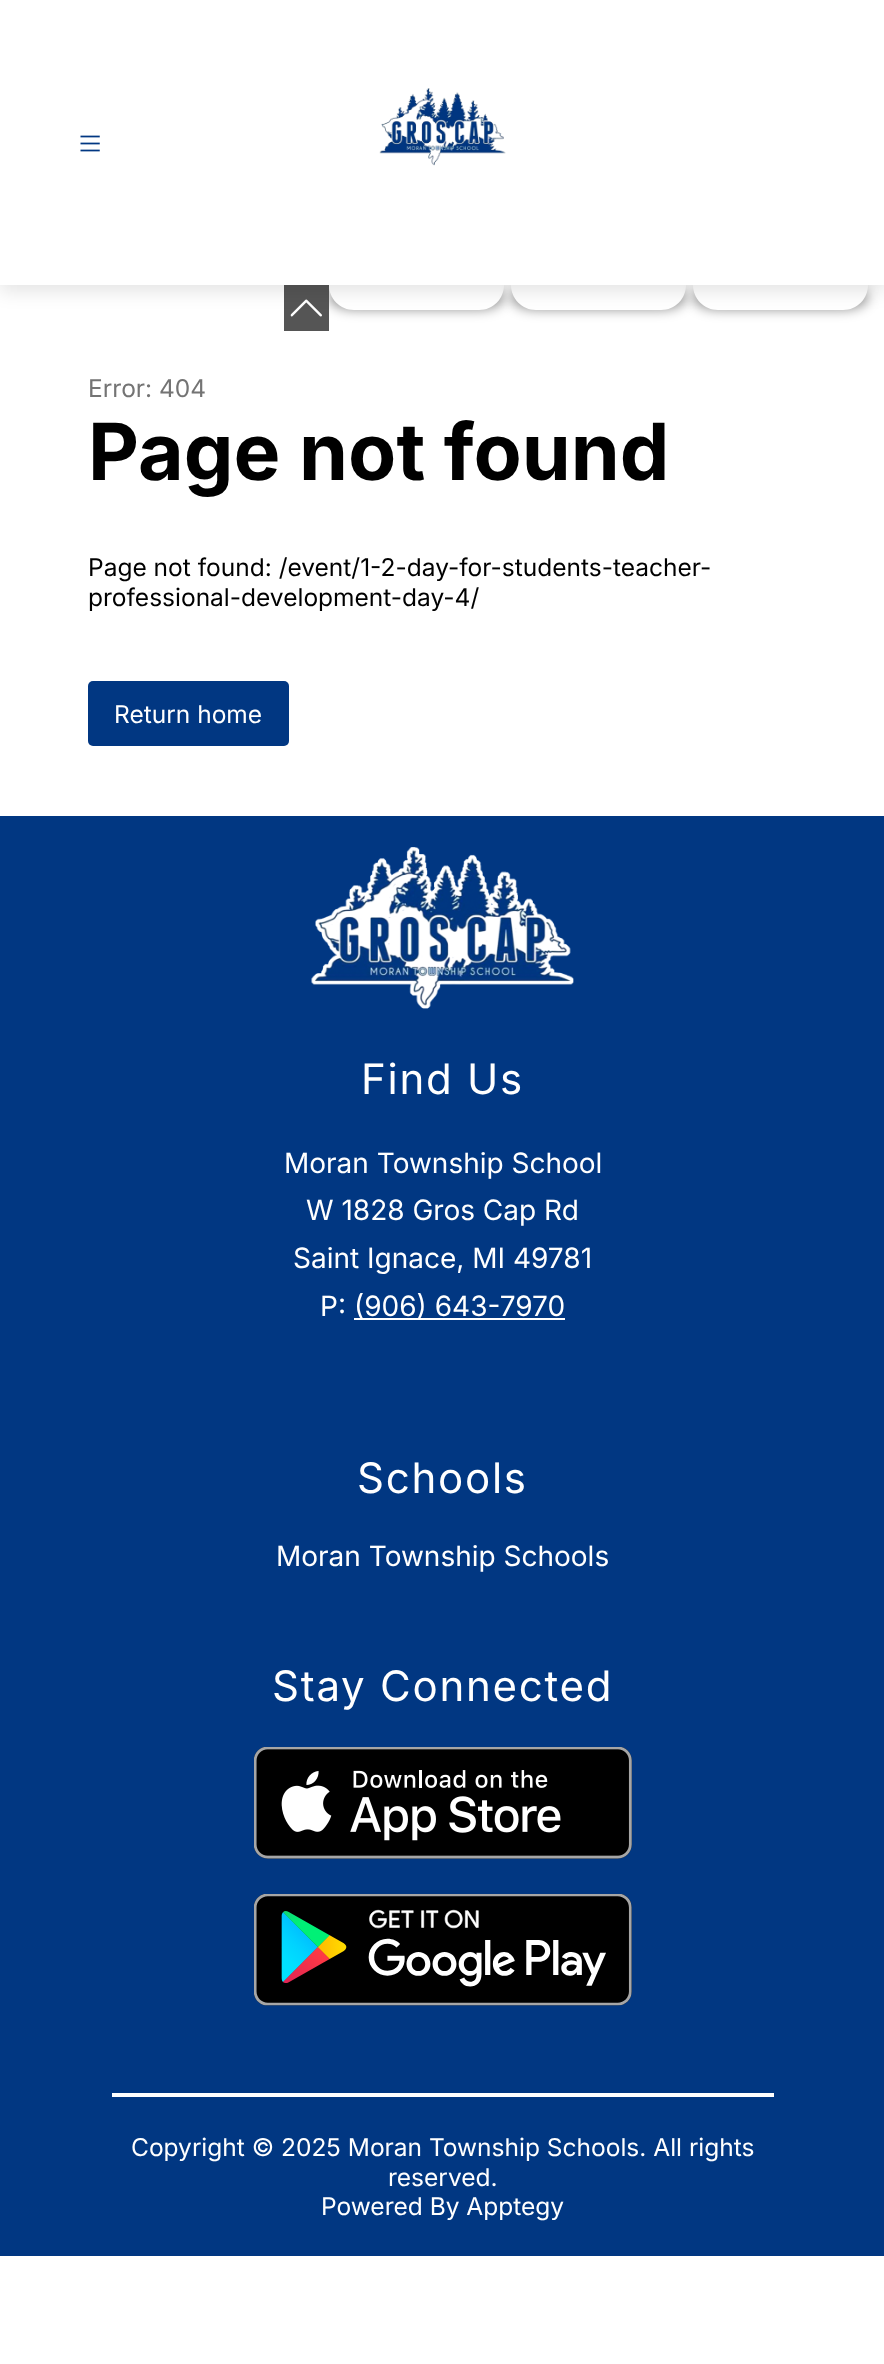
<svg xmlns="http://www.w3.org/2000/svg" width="884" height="2364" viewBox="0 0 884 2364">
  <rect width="100%" height="100%" fill="#fff"/>
  <rect x="329" y="285" width="175" height="25" rx="25" fill="#00000066" filter="blur(6px)"/>
  <path d="M284 285h45v46H284z" fill="#555"/>
  <image x="290" y="299" width="32" height="18" href="img/3.png"/>
  <path d="M329 285H504C504 299 493 310 479 310H354C340 310 329 299 329 285Z" fill="#fff"/>
  <rect x="511" y="285" width="175" height="25" rx="25" fill="#00000066" filter="blur(6px)"/>
  <path d="M511 285H686C686 299 675 310 661 310H536C522 310 511 299 511 285Z" fill="#fff"/>
  <rect x="693" y="285" width="175" height="25" rx="25" fill="#00000066" filter="blur(6px)"/>
  <path d="M693 285H868C868 299 857 310 843 310H718C704 310 693 299 693 285Z" fill="#fff"/>
  <path d="M0 7h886v285H0z" fill="#0000001a" filter="blur(9px)"/>
  <path d="M0 0h884v285H0z" fill="#fff"/>
  <image x="80" y="135" width="20" height="17" href="img/1.png"/>
  <image x="379" y="88" width="127" height="78" href="img/2.png"/>
  <rect x="88" y="681" width="201" height="65" rx="5" fill="#013782"/>
  <path d="M0 816h884v1440H0z" fill="#013782"/>
  <image x="311" y="847" width="263" height="162" href="img/4.png"/>
  <path d="M354 1318h211v2H354z" fill="#fff"/>
  <image x="254" y="1747" width="378" height="112" href="img/5.png"/>
  <image x="254" y="1894" width="378" height="112" href="img/6.png"/>
  <path d="M112 2093h662v4H112z" fill="#fff"/>
  <text x="88" y="397" font-family="Inter" font-size="24.5" fill="#747474">Error: 404</text>
  <text x="88" y="480" font-family="Inter" font-size="78.75" font-weight="bold" fill="#000">Page not found</text>
  <g font-family="Inter" font-size="24.5" fill="#000">
    <text x="88" y="576">Page not found: /event/1-2-day-for-students-teacher-</text>
    <text x="88" y="606">professional-development-day-4/</text>
  </g>
  <text x="114" y="723" font-family="Inter" font-size="24.5" fill="#fff">Return home</text>
  <text x="361" y="1094" font-family="Inter" font-size="42" letter-spacing="1.75" fill="#fff">Find Us</text>
  <g font-family="Inter" font-size="28" fill="#fff">
    <text x="284" y="1173">Moran Township School</text>
    <text x="306" y="1220">W 1828 Gros Cap Rd</text>
    <text x="293" y="1268">Saint Ignace, MI 49781</text>
    <text x="320" y="1316">P:</text>
    <text x="354" y="1316">(906) 643-7970</text>
  </g>
  <text x="357" y="1493" font-family="Inter" font-size="42" letter-spacing="1.75" fill="#fff">Schools</text>
  <text x="276" y="1566" font-family="Inter" font-size="28" fill="#fff">Moran Township Schools</text>
  <text x="272" y="1701" font-family="Inter" font-size="42" letter-spacing="1.75" fill="#fff">Stay Connected</text>
  <g font-family="Inter" font-size="24.5" fill="#fff">
    <text x="131" y="2156">Copyright © 2025 Moran Township Schools. All rights</text>
    <text x="388" y="2186">reserved.</text>
    <text x="321" y="2215">Powered By Apptegy</text>
  </g>
</svg>
